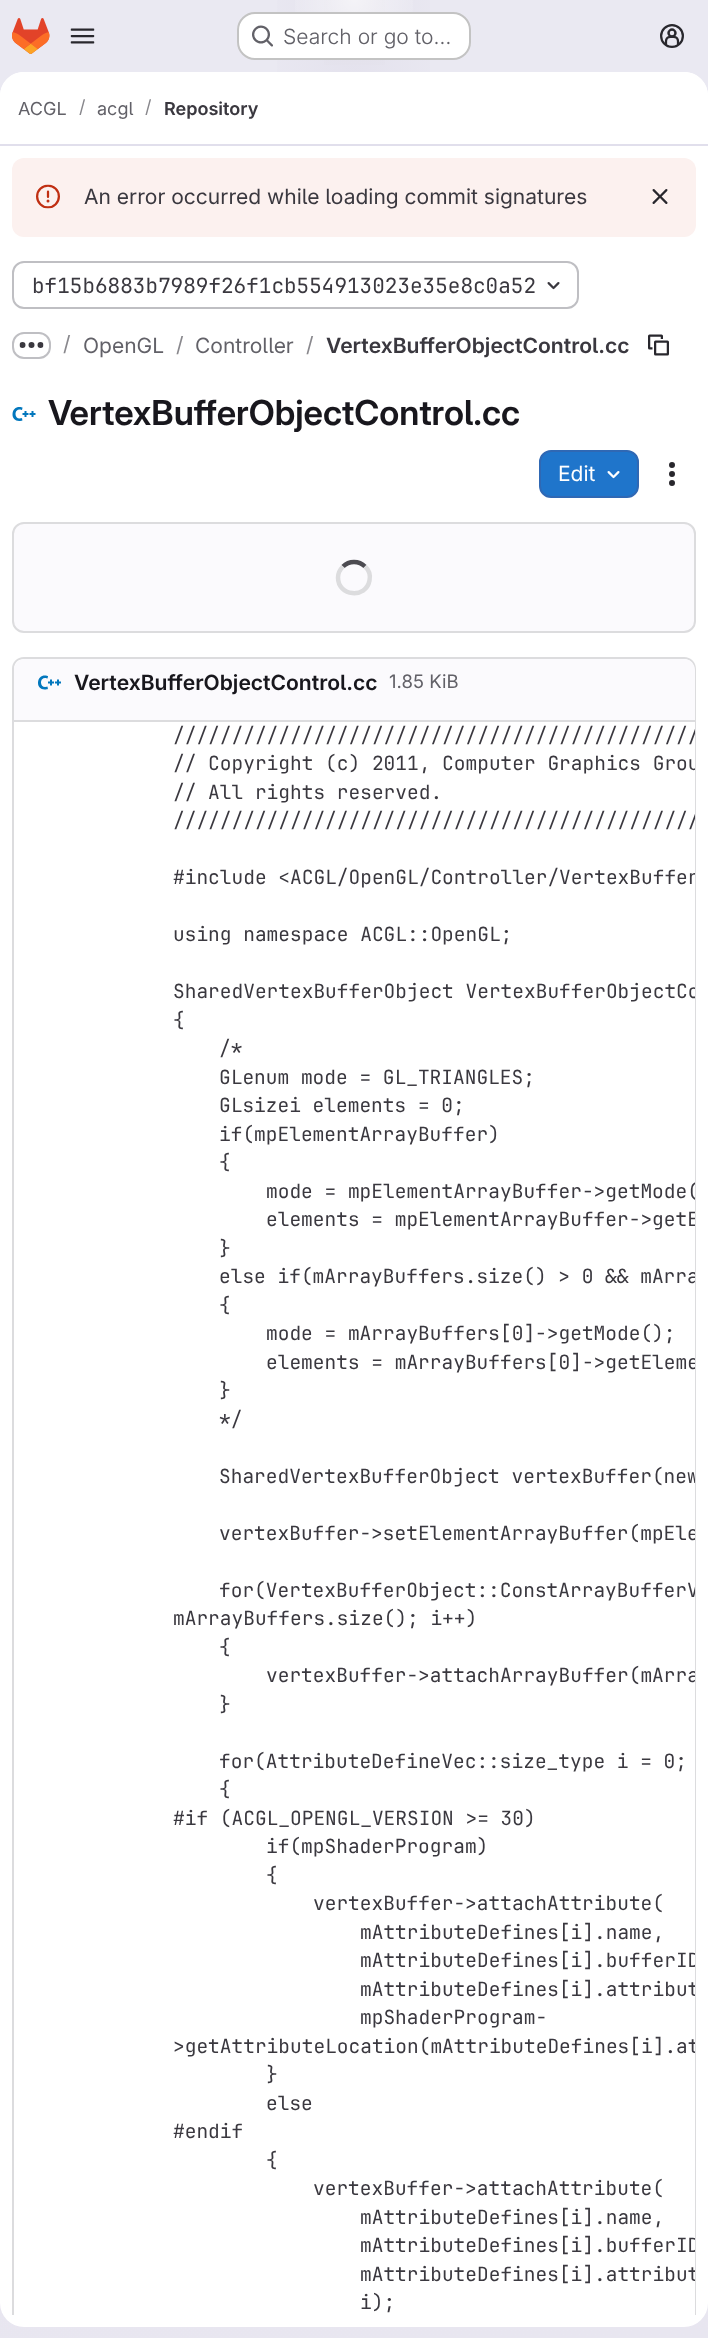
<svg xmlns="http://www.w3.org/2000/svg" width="708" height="2338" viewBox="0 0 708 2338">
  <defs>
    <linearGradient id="g1" gradientUnits="userSpaceOnUse" x1="565" y1="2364" x2="143" y2="-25"><stop offset="0" stop-color="#e8e6f0"/><stop offset="0.7" stop-color="#eae9f2"/></linearGradient>
    <radialGradient id="g2" gradientUnits="userSpaceOnUse" cx="0" cy="0" r="1" gradientTransform="matrix(354 0 0 2339 354 0)"><stop offset="0" stop-color="#e4e2ed"/><stop offset="0.3" stop-color="#e4e2ed" stop-opacity="0"/></radialGradient>
    <radialGradient id="g3" gradientUnits="userSpaceOnUse" cx="0" cy="0" r="1" gradientTransform="matrix(354 0 0 2339 354 0)"><stop offset="0" stop-color="#e4e2ec"/><stop offset="0.21" stop-color="#e4e2ec" stop-opacity="0"/></radialGradient>
    <radialGradient id="g4" gradientUnits="userSpaceOnUse" cx="354" cy="0" r="2365"><stop offset="0" stop-color="#fff" stop-opacity="0.6"/><stop offset="0.03" stop-color="#fff" stop-opacity="0"/></radialGradient>
    <clipPath id="clip1"><path d="M0 146h708v2169H0z"/></clipPath>
    <clipPath id="clip2"><path d="M14 722H695V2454C695 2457.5 692.5 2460 689 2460H20C16.5 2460 14 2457.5 14 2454Z"/></clipPath>
  </defs>
  <rect width="100%" height="100%" fill="#fff"/>
  <path d="M0 0h708v2338H0z" fill="url(#g1)"/>
  <path d="M277 0h153v72H277z" fill="url(#g2)"/>
  <path d="M324 0h61v65H324z" fill="url(#g3)"/>
  <path d="M295 0h118v60H295z" fill="url(#g4)"/>
  <image x="12" y="18" width="38" height="36" href="img/1.png"/>
  <image x="70" y="28" width="25" height="16" href="img/2.png"/>
  <rect x="237" y="12" width="234" height="48" rx="18" fill="#fff"/>
  <rect x="238" y="13" width="232" height="46" rx="17" fill="none" stroke="#0505063d" stroke-width="2"/>
  <image x="252" y="25" width="21" height="22" href="img/3.png"/>
  <image x="660" y="24" width="24" height="24" href="img/4.png"/>
  <rect y="72" width="708" height="2255" rx="24" fill="#fff"/>
  <path d="M24 72H684C697.5 72 708 82.5 708 96V146H0V96C0 82.5 10.5 72 24 72Z" fill="#fff"/>
  <path d="M0 144h708v2H0z" fill="#e1dfec"/>
  <rect x="12" y="158" width="684" height="79" rx="12" fill="#fcf1ef"/>
  <image x="36" y="184" width="24" height="25" href="img/5.png"/>
  <image x="652" y="189" width="16" height="15" href="img/6.png"/>
  <rect x="13" y="262" width="565" height="46" rx="11" fill="none" stroke="#bfbfc3" stroke-width="2"/>
  <image x="547" y="282" width="13" height="8" href="img/7.png"/>
  <rect x="13" y="333" width="37" height="25" rx="11" fill="none" stroke="#bfbfc3" stroke-width="2"/>
  <image x="19" y="342" width="25" height="6" href="img/8.png"/>
  <image x="648" y="334" width="21" height="22" href="img/9.png"/>
  <image x="12" y="407" width="24" height="14" href="img/10.png"/>
  <rect x="540" y="451" width="98" height="46" rx="11" fill="#1f75cb" stroke="#2f68b4" stroke-width="2"/>
  <image x="607" y="471" width="13" height="8" href="img/11.png"/>
  <image x="669" y="462" width="6" height="24" href="img/12.png"/>
  <rect x="13" y="523" width="682" height="109" rx="11" fill="#fbfafd" stroke="#dcdcde" stroke-width="2"/>
  <path d="M343 566.5C349 560.5 359 560.5 365 566.5" fill="none" stroke="#4c4b51" stroke-width="4.5"/>
  <path d="M365 566.5C369 570 370.5 575.5 369.5 580.5C366 599 338 596.5 338 577.5C338 573.5 340 569.5 343 566.5" fill="none" stroke="#dcdcde" stroke-width="4.5"/>
  <g clip-path="url(#clip1)">
    <path d="M24 657C17 657 12 662 12 669V2324L14 2325V669C14 663 18 659 24 659H684C690 659 694 663 694 669V2325L696 2324V669C696 662 691 657 684 657Z" fill="#dcdcde"/>
  </g>
  <path d="M25 659H684C690 659 695 664 695 670V722H14V670C14 664 19 659 25 659Z" fill="#fbfafd"/>
  <path d="M14 720h681v2H14z" fill="#dcdcde"/>
  <image x="38" y="675" width="23" height="15" href="img/13.png"/>
  <path d="M694 722h1v1593H694z" fill="#fff"/>
  <text x="283" y="44" font-family="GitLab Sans" font-size="21" font-weight="300" fill="#626168">Search or go to…</text>
  <text x="18" y="115" font-family="GitLab Sans" font-size="18" fill="#626168">ACGL</text>
  <text x="79" y="113" font-family="GitLab Sans" font-size="18" fill="#89888d">/</text>
  <text x="97" y="115" font-family="GitLab Sans" font-size="18" fill="#626168">acgl</text>
  <text x="145" y="113" font-family="GitLab Sans" font-size="18" fill="#89888d">/</text>
  <text x="164" y="115" font-family="'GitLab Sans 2'" font-size="18" font-weight="600" fill="#3a383f">Repository</text>
  <text x="84" y="204" font-family="GitLab Sans" font-size="21" fill="#3a383f">An error occurred while loading commit signatures</text>
  <text x="32" y="293" font-family="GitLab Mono" font-size="21" fill="#3a383f">bf15b6883b7989f26f1cb554913023e35e8c0a52</text>
  <text x="63" y="351" font-family="GitLab Sans" font-size="21" fill="#89888d">/</text>
  <text x="83" y="353" font-family="GitLab Sans" font-size="21" fill="#626168">OpenGL</text>
  <text x="176" y="352" font-family="GitLab Sans" font-size="21" fill="#89888d">/</text>
  <text x="195" y="353" font-family="GitLab Sans" font-size="21" fill="#626168">Controller</text>
  <text x="306" y="352" font-family="GitLab Sans" font-size="21" fill="#89888d">/</text>
  <text x="326" y="353" font-family="'GitLab Sans 2'" font-size="21" font-weight="600" fill="#3a383f">VertexBufferObjectControl.cc</text>
  <text x="48" y="425" font-family="GitLab Sans" font-size="34.5" font-weight="600" fill="#18171d">VertexBufferObjectControl.cc</text>
  <text x="558" y="481" font-family="GitLab Sans" font-size="21" fill="#fff">Edit</text>
  <text x="74" y="690" font-family="'GitLab Sans 2'" font-size="21" font-weight="600" fill="#18171d">VertexBufferObjectControl.cc</text>
  <text x="389" y="688" font-family="GitLab Sans" font-size="18.5" fill="#626168">1.85 KiB</text>
  <g clip-path="url(#clip2)">
    <g font-family="GitLab Mono" font-size="19.5" fill="#3a383f">
      <text x="173" y="742">/////////////////////////////////////////////</text>
      <text x="173" y="770">// Copyright (c) 2011, Computer Graphics Grou</text>
    </g>
  </g>
  <text x="173" y="799" font-family="GitLab Mono" font-size="19.5" fill="#3a383f">// All rights reserved.</text>
  <g clip-path="url(#clip2)">
    <g font-family="GitLab Mono" font-size="19.5" fill="#3a383f">
      <text x="173" y="827">/////////////////////////////////////////////</text>
      <text x="173" y="884">#include &lt;ACGL/OpenGL/Controller/VertexBuffer</text>
    </g>
  </g>
  <text x="173" y="941" font-family="GitLab Mono" font-size="19.5" fill="#3a383f">using namespace ACGL::OpenGL;</text>
  <g clip-path="url(#clip2)">
    <text x="173" y="998" font-family="GitLab Mono" font-size="19.5" fill="#3a383f">SharedVertexBufferObject VertexBufferObjectCo</text>
  </g>
  <g font-family="GitLab Mono" font-size="19.5" fill="#3a383f">
    <text x="173" y="1027">{</text>
    <text x="219" y="1055">/*</text>
    <text x="219" y="1084">GLenum mode = GL_TRIANGLES;</text>
    <text x="219" y="1112">GLsizei elements = 0;</text>
    <text x="219" y="1141">if(mpElementArrayBuffer)</text>
    <text x="219" y="1169">{</text>
  </g>
  <g clip-path="url(#clip2)">
    <g font-family="GitLab Mono" font-size="19.5" fill="#3a383f">
      <text x="266" y="1198">mode = mpElementArrayBuffer-&gt;getMode(</text>
      <text x="266" y="1226">elements = mpElementArrayBuffer-&gt;getE</text>
    </g>
  </g>
  <text x="219" y="1255" font-family="GitLab Mono" font-size="19.5" fill="#3a383f">}</text>
  <g clip-path="url(#clip2)">
    <text x="219" y="1283" font-family="GitLab Mono" font-size="19.5" fill="#3a383f">else if(mArrayBuffers.size() &gt; 0 &amp;&amp; mArra</text>
  </g>
  <g font-family="GitLab Mono" font-size="19.5" fill="#3a383f">
    <text x="219" y="1312">{</text>
    <text x="266" y="1340">mode = mArrayBuffers[0]-&gt;getMode();</text>
  </g>
  <g clip-path="url(#clip2)">
    <text x="266" y="1369" font-family="GitLab Mono" font-size="19.5" fill="#3a383f">elements = mArrayBuffers[0]-&gt;getEleme</text>
  </g>
  <g font-family="GitLab Mono" font-size="19.5" fill="#3a383f">
    <text x="219" y="1397">}</text>
    <text x="219" y="1426">*/</text>
  </g>
  <g clip-path="url(#clip2)">
    <g font-family="GitLab Mono" font-size="19.5" fill="#3a383f">
      <text x="219" y="1483">SharedVertexBufferObject vertexBuffer(new</text>
      <text x="219" y="1540">vertexBuffer-&gt;setElementArrayBuffer(mpEle</text>
      <text x="219" y="1597">for(VertexBufferObject::ConstArrayBufferV</text>
    </g>
  </g>
  <g font-family="GitLab Mono" font-size="19.5" fill="#3a383f">
    <text x="173" y="1625">mArrayBuffers.size(); i++)</text>
    <text x="219" y="1654">{</text>
  </g>
  <g clip-path="url(#clip2)">
    <text x="266" y="1682" font-family="GitLab Mono" font-size="19.5" fill="#3a383f">vertexBuffer-&gt;attachArrayBuffer(mArra</text>
  </g>
  <g font-family="GitLab Mono" font-size="19.5" fill="#3a383f">
    <text x="219" y="1711">}</text>
    <text x="219" y="1768">for(AttributeDefineVec::size_type i = 0;</text>
    <text x="219" y="1796">{</text>
    <text x="173" y="1825">#if (ACGL_OPENGL_VERSION &gt;= 30)</text>
    <text x="266" y="1853">if(mpShaderProgram)</text>
    <text x="266" y="1882">{</text>
    <text x="313" y="1910">vertexBuffer-&gt;attachAttribute(</text>
    <text x="360" y="1939">mAttributeDefines[i].name,</text>
  </g>
  <g clip-path="url(#clip2)">
    <g font-family="GitLab Mono" font-size="19.5" fill="#3a383f">
      <text x="360" y="1967">mAttributeDefines[i].bufferID</text>
      <text x="360" y="1996">mAttributeDefines[i].attribut</text>
    </g>
  </g>
  <text x="360" y="2024" font-family="GitLab Mono" font-size="19.5" fill="#3a383f">mpShaderProgram-</text>
  <g clip-path="url(#clip2)">
    <text x="173" y="2053" font-family="GitLab Mono" font-size="19.5" fill="#3a383f">&gt;getAttributeLocation(mAttributeDefines[i].at</text>
  </g>
  <g font-family="GitLab Mono" font-size="19.5" fill="#3a383f">
    <text x="266" y="2081">}</text>
    <text x="266" y="2110">else</text>
    <text x="173" y="2138">#endif</text>
    <text x="266" y="2167">{</text>
    <text x="313" y="2195">vertexBuffer-&gt;attachAttribute(</text>
    <text x="360" y="2224">mAttributeDefines[i].name,</text>
  </g>
  <g clip-path="url(#clip2)">
    <g font-family="GitLab Mono" font-size="19.5" fill="#3a383f">
      <text x="360" y="2252">mAttributeDefines[i].bufferID</text>
      <text x="360" y="2281">mAttributeDefines[i].attribut</text>
    </g>
  </g>
  <text x="360" y="2309" font-family="GitLab Mono" font-size="19.5" fill="#3a383f">i);</text>
</svg>
